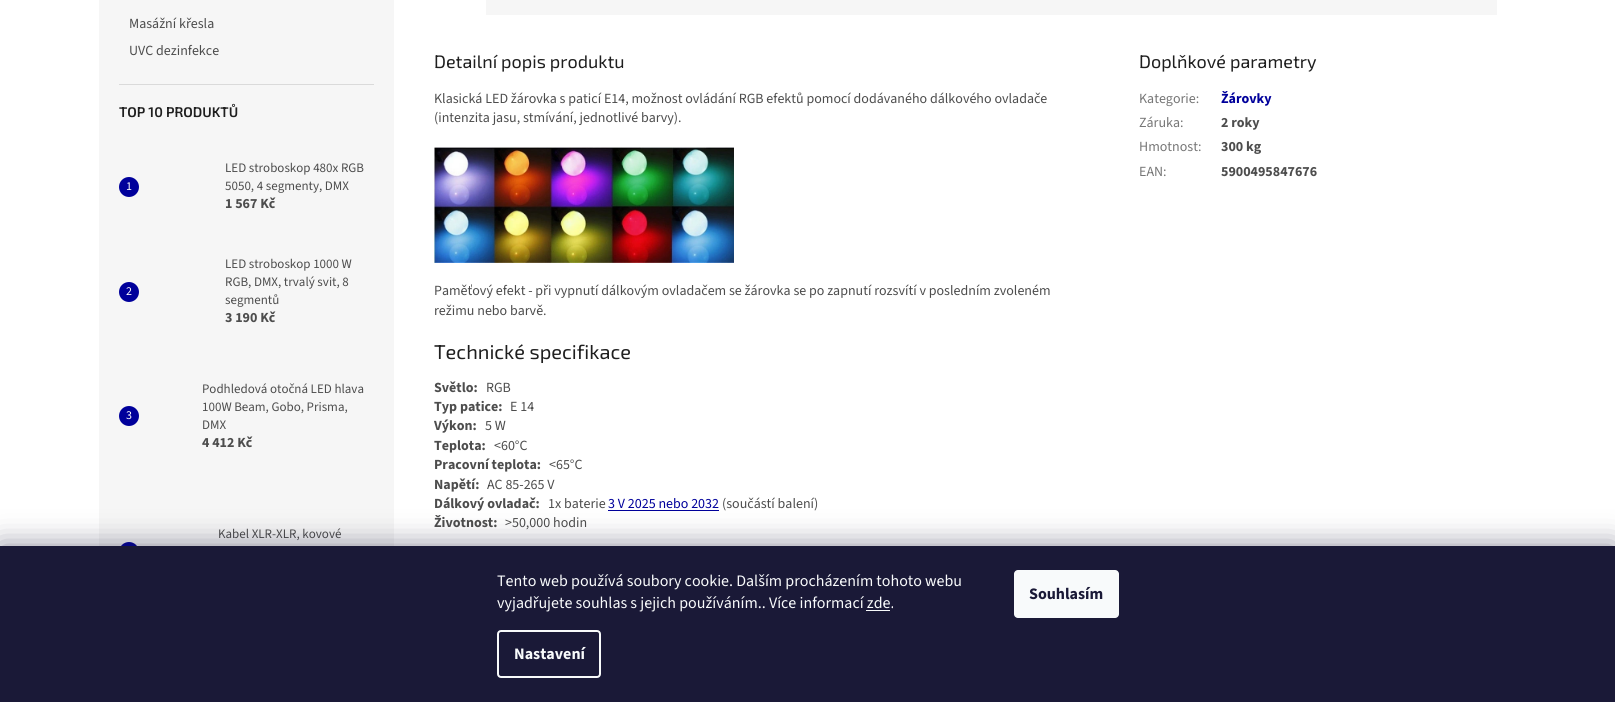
#include <cairo.h>
#include <math.h>
#include <stddef.h>

typedef struct { double x, y; const char *s; } line_t;

static void ink(cairo_t *ctx, unsigned color) {
    cairo_set_source_rgb(ctx, (color >> 16) / 255.0, (color >> 8 & 255) / 255.0, (color & 255) / 255.0);
}

static void round_path(cairo_t *ctx, double x, double y, double w, double h, double r) {
    cairo_new_sub_path(ctx);
    cairo_arc(ctx, x + w - r, y + h - r, r, 0, M_PI / 2);
    cairo_arc(ctx, x + r, y + h - r, r, M_PI / 2, M_PI);
    cairo_arc(ctx, x + r, y + r, r, M_PI, 1.5 * M_PI);
    cairo_arc(ctx, x + w - r, y + r, r, 1.5 * M_PI, 2 * M_PI);
    cairo_close_path(ctx);
}

static void blur_box(cairo_t *ctx, double x, double y, double w, double h, double r, double blur, double alpha) {
    cairo_push_group_with_content(ctx, CAIRO_CONTENT_ALPHA);
    cairo_set_operator(ctx, CAIRO_OPERATOR_SOURCE);
    for (int i = 15; i >= -15 && fmin(w, h) + blur * i / 3 > 0; i -= 2) {
        double e = blur * i / 6;
        cairo_set_source_rgba(ctx, 0, 0, 0, alpha * erfc((i - 1) / 8.5) / 2);
        round_path(ctx, x - e, y - e, w + 2 * e, h + 2 * e, fmax(0, fmin(r + e + blur * .6, fmin(w, h) / 2 + e)));
        cairo_fill(ctx);
    }
    cairo_pattern_t *soft = cairo_pop_group(ctx);
    cairo_mask(ctx, soft);
    cairo_pattern_destroy(soft);
}

static void paste(cairo_t *ctx, const char *path, double x, double y, double w, double h) {
    cairo_surface_t *image = cairo_image_surface_create_from_png(path);
    cairo_save(ctx);
    cairo_set_source_surface(ctx, image, x, y);
    cairo_rectangle(ctx, x, y, w, h);
    cairo_fill(ctx);
    cairo_restore(ctx);
    cairo_surface_destroy(image);
}

int main(void) {
    cairo_surface_t *surface = cairo_image_surface_create(CAIRO_FORMAT_RGB24, 1615, 702);
    cairo_t *ctx = cairo_create(surface);
    cairo_font_options_t *options = cairo_font_options_create();
    cairo_font_options_set_hint_metrics(options, CAIRO_HINT_METRICS_OFF);
    cairo_font_options_set_hint_style(options, CAIRO_HINT_STYLE_NONE);
    cairo_set_font_options(ctx, options);
    cairo_set_miter_limit(ctx, 4);
    ink(ctx, 0xFFFFFF);
    cairo_paint(ctx);
    ink(ctx, 0xF6F6F6);
    cairo_rectangle(ctx, 99, 0, 295, 546);
    cairo_fill(ctx);
    ink(ctx, 0xDADADA);
    cairo_rectangle(ctx, 119, 84, 255, 1);
    cairo_fill(ctx);
    cairo_select_font_face(ctx, "Source Sans 3", CAIRO_FONT_SLANT_NORMAL, CAIRO_FONT_WEIGHT_NORMAL);
    cairo_set_font_size(ctx, 14);
    ink(ctx, 0x4D4D4D);
    cairo_move_to(ctx, 129, 28);
    cairo_show_text(ctx, "Masážní křesla");
    cairo_move_to(ctx, 129, 55);
    cairo_show_text(ctx, "UVC dezinfekce");
    cairo_select_font_face(ctx, "Exo 2 SemiBold", CAIRO_FONT_SLANT_NORMAL, CAIRO_FONT_WEIGHT_NORMAL);
    ink(ctx, 0x1F1F1F);
    cairo_move_to(ctx, 119, 117);
    cairo_show_text(ctx, "TOP 10 PRODUKTŮ");
    ink(ctx, 0x00009B);
    cairo_new_path(ctx);
    cairo_arc(ctx, 129, 187, 10, 0, 2 * M_PI);
    cairo_fill(ctx);
    cairo_select_font_face(ctx, "Source Sans 3", CAIRO_FONT_SLANT_NORMAL, CAIRO_FONT_WEIGHT_NORMAL);
    cairo_set_font_size(ctx, 12);
    ink(ctx, 0xFFFFFF);
    cairo_move_to(ctx, 126, 190);
    cairo_show_text(ctx, "1");
    cairo_set_font_size(ctx, 13);
    ink(ctx, 0x4D4D4D);
    cairo_move_to(ctx, 225, 172);
    cairo_show_text(ctx, "LED stroboskop 480x RGB");
    cairo_move_to(ctx, 225, 190);
    cairo_show_text(ctx, "5050, 4 segmenty, DMX");
    cairo_select_font_face(ctx, "Source Sans 3", CAIRO_FONT_SLANT_NORMAL, CAIRO_FONT_WEIGHT_BOLD);
    cairo_set_font_size(ctx, 14);
    cairo_move_to(ctx, 225, 208);
    cairo_show_text(ctx, "1 567 Kč");
    ink(ctx, 0x00009B);
    cairo_new_path(ctx);
    cairo_arc(ctx, 129, 292, 10, 0, 2 * M_PI);
    cairo_fill(ctx);
    cairo_select_font_face(ctx, "Source Sans 3", CAIRO_FONT_SLANT_NORMAL, CAIRO_FONT_WEIGHT_NORMAL);
    cairo_set_font_size(ctx, 12);
    ink(ctx, 0xFFFFFF);
    cairo_move_to(ctx, 126, 295);
    cairo_show_text(ctx, "2");
    cairo_set_font_size(ctx, 13);
    ink(ctx, 0x4D4D4D);
    {
        static const line_t items[] = {
            {225, 268, "LED stroboskop 1000 W"},
            {225, 286, "RGB, DMX, trvalý svit, 8"},
            {225, 304, "segmentů"},
        };
        for (size_t i = 0; i < sizeof items / sizeof *items; i++) {
            cairo_move_to(ctx, items[i].x, items[i].y);
            cairo_show_text(ctx, items[i].s);
        }
    }
    cairo_select_font_face(ctx, "Source Sans 3", CAIRO_FONT_SLANT_NORMAL, CAIRO_FONT_WEIGHT_BOLD);
    cairo_set_font_size(ctx, 14);
    cairo_move_to(ctx, 225, 322);
    cairo_show_text(ctx, "3 190 Kč");
    ink(ctx, 0x00009B);
    cairo_new_path(ctx);
    cairo_arc(ctx, 129, 416, 10, 0, 2 * M_PI);
    cairo_fill(ctx);
    cairo_select_font_face(ctx, "Source Sans 3", CAIRO_FONT_SLANT_NORMAL, CAIRO_FONT_WEIGHT_NORMAL);
    cairo_set_font_size(ctx, 12);
    ink(ctx, 0xFFFFFF);
    cairo_move_to(ctx, 126, 419);
    cairo_show_text(ctx, "3");
    cairo_set_font_size(ctx, 13);
    ink(ctx, 0x4D4D4D);
    {
        static const line_t items[] = {
            {202, 393, "Podhledová otočná LED hlava"},
            {202, 411, "100W Beam, Gobo, Prisma,"},
            {202, 429, "DMX"},
        };
        for (size_t i = 0; i < sizeof items / sizeof *items; i++) {
            cairo_move_to(ctx, items[i].x, items[i].y);
            cairo_show_text(ctx, items[i].s);
        }
    }
    cairo_select_font_face(ctx, "Source Sans 3", CAIRO_FONT_SLANT_NORMAL, CAIRO_FONT_WEIGHT_BOLD);
    cairo_set_font_size(ctx, 14);
    cairo_move_to(ctx, 202, 447);
    cairo_show_text(ctx, "4 412 Kč");
    cairo_select_font_face(ctx, "Source Sans 3", CAIRO_FONT_SLANT_NORMAL, CAIRO_FONT_WEIGHT_NORMAL);
    cairo_set_font_size(ctx, 13);
    cairo_move_to(ctx, 218, 538);
    cairo_show_text(ctx, "Kabel XLR-XLR, kovové");
    ink(ctx, 0x00009B);
    cairo_new_path(ctx);
    cairo_arc(ctx, 129, 552, 10, 0, 2 * M_PI);
    cairo_fill(ctx);
    ink(ctx, 0xF6F6F6);
    cairo_rectangle(ctx, 486, 0, 1011, 15);
    cairo_fill(ctx);
    cairo_select_font_face(ctx, "Exo 2", CAIRO_FONT_SLANT_NORMAL, CAIRO_FONT_WEIGHT_NORMAL);
    cairo_set_font_size(ctx, 18);
    ink(ctx, 0x1F1F1F);
    cairo_move_to(ctx, 434, 68);
    cairo_show_text(ctx, "Detailní popis produktu");
    cairo_select_font_face(ctx, "Source Sans 3", CAIRO_FONT_SLANT_NORMAL, CAIRO_FONT_WEIGHT_NORMAL);
    cairo_set_font_size(ctx, 14);
    ink(ctx, 0x4D4D4D);
    cairo_move_to(ctx, 434, 103);
    cairo_show_text(ctx, "Klasická LED žárovka s paticí E14, možnost ovládání RGB efektů pomocí dodávaného dálkového ovladače");
    cairo_move_to(ctx, 434, 122);
    cairo_show_text(ctx, "(intenzita jasu, stmívání, jednotlivé barvy).");
    paste(ctx, "media/1.png", 434, 147, 300, 116);
    cairo_move_to(ctx, 434, 295);
    cairo_show_text(ctx, "Paměťový efekt - při vypnutí dálkovým ovladačem se žárovka se po zapnutí rozsvítí v posledním zvoleném");
    cairo_move_to(ctx, 434, 315);
    cairo_show_text(ctx, "režimu nebo barvě.");
    cairo_select_font_face(ctx, "Exo 2", CAIRO_FONT_SLANT_NORMAL, CAIRO_FONT_WEIGHT_NORMAL);
    cairo_set_font_size(ctx, 20);
    ink(ctx, 0x1F1F1F);
    cairo_move_to(ctx, 434, 359);
    cairo_show_text(ctx, "Technické specifikace");
    cairo_select_font_face(ctx, "Source Sans 3", CAIRO_FONT_SLANT_NORMAL, CAIRO_FONT_WEIGHT_BOLD);
    cairo_set_font_size(ctx, 14);
    ink(ctx, 0x4D4D4D);
    cairo_move_to(ctx, 434, 392);
    cairo_show_text(ctx, "Světlo:");
    cairo_select_font_face(ctx, "Source Sans 3", CAIRO_FONT_SLANT_NORMAL, CAIRO_FONT_WEIGHT_NORMAL);
    cairo_move_to(ctx, 486, 392);
    cairo_show_text(ctx, "RGB");
    cairo_select_font_face(ctx, "Source Sans 3", CAIRO_FONT_SLANT_NORMAL, CAIRO_FONT_WEIGHT_BOLD);
    cairo_move_to(ctx, 434, 411);
    cairo_show_text(ctx, "Typ patice:");
    cairo_select_font_face(ctx, "Source Sans 3", CAIRO_FONT_SLANT_NORMAL, CAIRO_FONT_WEIGHT_NORMAL);
    cairo_move_to(ctx, 510, 411);
    cairo_show_text(ctx, "E 14");
    cairo_select_font_face(ctx, "Source Sans 3", CAIRO_FONT_SLANT_NORMAL, CAIRO_FONT_WEIGHT_BOLD);
    cairo_move_to(ctx, 434, 430);
    cairo_show_text(ctx, "Výkon:");
    cairo_select_font_face(ctx, "Source Sans 3", CAIRO_FONT_SLANT_NORMAL, CAIRO_FONT_WEIGHT_NORMAL);
    cairo_move_to(ctx, 485, 430);
    cairo_show_text(ctx, "5 W");
    cairo_select_font_face(ctx, "Source Sans 3", CAIRO_FONT_SLANT_NORMAL, CAIRO_FONT_WEIGHT_BOLD);
    cairo_move_to(ctx, 434, 450);
    cairo_show_text(ctx, "Teplota:");
    cairo_select_font_face(ctx, "Source Sans 3", CAIRO_FONT_SLANT_NORMAL, CAIRO_FONT_WEIGHT_NORMAL);
    cairo_move_to(ctx, 494, 450);
    cairo_show_text(ctx, "<60°C");
    cairo_select_font_face(ctx, "Source Sans 3", CAIRO_FONT_SLANT_NORMAL, CAIRO_FONT_WEIGHT_BOLD);
    cairo_move_to(ctx, 434, 469);
    cairo_show_text(ctx, "Pracovní teplota:");
    cairo_select_font_face(ctx, "Source Sans 3", CAIRO_FONT_SLANT_NORMAL, CAIRO_FONT_WEIGHT_NORMAL);
    cairo_move_to(ctx, 549, 469);
    cairo_show_text(ctx, "<65°C");
    cairo_select_font_face(ctx, "Source Sans 3", CAIRO_FONT_SLANT_NORMAL, CAIRO_FONT_WEIGHT_BOLD);
    cairo_move_to(ctx, 434, 489);
    cairo_show_text(ctx, "Napětí:");
    cairo_select_font_face(ctx, "Source Sans 3", CAIRO_FONT_SLANT_NORMAL, CAIRO_FONT_WEIGHT_NORMAL);
    cairo_move_to(ctx, 487, 489);
    cairo_show_text(ctx, "AC 85-265 V");
    cairo_select_font_face(ctx, "Source Sans 3", CAIRO_FONT_SLANT_NORMAL, CAIRO_FONT_WEIGHT_BOLD);
    cairo_move_to(ctx, 434, 508);
    cairo_show_text(ctx, "Dálkový ovladač:");
    cairo_select_font_face(ctx, "Source Sans 3", CAIRO_FONT_SLANT_NORMAL, CAIRO_FONT_WEIGHT_NORMAL);
    cairo_move_to(ctx, 548, 508);
    cairo_show_text(ctx, "1x baterie");
    ink(ctx, 0x00009B);
    cairo_move_to(ctx, 608, 508);
    cairo_show_text(ctx, "3 V 2025 nebo 2032");
    cairo_rectangle(ctx, 608, 510, 111, 1);
    cairo_fill(ctx);
    ink(ctx, 0x4D4D4D);
    cairo_move_to(ctx, 722, 508);
    cairo_show_text(ctx, "(součástí balení)");
    cairo_select_font_face(ctx, "Source Sans 3", CAIRO_FONT_SLANT_NORMAL, CAIRO_FONT_WEIGHT_BOLD);
    cairo_move_to(ctx, 434, 527);
    cairo_show_text(ctx, "Životnost:");
    cairo_select_font_face(ctx, "Source Sans 3", CAIRO_FONT_SLANT_NORMAL, CAIRO_FONT_WEIGHT_NORMAL);
    cairo_move_to(ctx, 505, 527);
    cairo_show_text(ctx, ">50,000 hodin");
    cairo_select_font_face(ctx, "Exo 2", CAIRO_FONT_SLANT_NORMAL, CAIRO_FONT_WEIGHT_NORMAL);
    cairo_set_font_size(ctx, 18);
    ink(ctx, 0x1F1F1F);
    cairo_move_to(ctx, 1139, 68);
    cairo_show_text(ctx, "Doplňkové parametry");
    cairo_select_font_face(ctx, "Source Sans 3", CAIRO_FONT_SLANT_NORMAL, CAIRO_FONT_WEIGHT_NORMAL);
    cairo_set_font_size(ctx, 14);
    ink(ctx, 0x767676);
    cairo_move_to(ctx, 1139, 103);
    cairo_show_text(ctx, "Kategorie:");
    cairo_select_font_face(ctx, "Source Sans 3", CAIRO_FONT_SLANT_NORMAL, CAIRO_FONT_WEIGHT_BOLD);
    ink(ctx, 0x00009B);
    cairo_move_to(ctx, 1221, 103);
    cairo_show_text(ctx, "Žárovky");
    cairo_select_font_face(ctx, "Source Sans 3", CAIRO_FONT_SLANT_NORMAL, CAIRO_FONT_WEIGHT_NORMAL);
    ink(ctx, 0x767676);
    cairo_move_to(ctx, 1139, 127);
    cairo_show_text(ctx, "Záruka:");
    cairo_select_font_face(ctx, "Source Sans 3", CAIRO_FONT_SLANT_NORMAL, CAIRO_FONT_WEIGHT_BOLD);
    ink(ctx, 0x4D4D4D);
    cairo_move_to(ctx, 1221, 127);
    cairo_show_text(ctx, "2 roky");
    cairo_select_font_face(ctx, "Source Sans 3", CAIRO_FONT_SLANT_NORMAL, CAIRO_FONT_WEIGHT_NORMAL);
    ink(ctx, 0x767676);
    cairo_move_to(ctx, 1139, 151);
    cairo_show_text(ctx, "Hmotnost:");
    cairo_select_font_face(ctx, "Source Sans 3", CAIRO_FONT_SLANT_NORMAL, CAIRO_FONT_WEIGHT_BOLD);
    ink(ctx, 0x4D4D4D);
    cairo_move_to(ctx, 1221, 151);
    cairo_show_text(ctx, "300 kg");
    cairo_select_font_face(ctx, "Source Sans 3", CAIRO_FONT_SLANT_NORMAL, CAIRO_FONT_WEIGHT_NORMAL);
    ink(ctx, 0x767676);
    cairo_move_to(ctx, 1139, 176);
    cairo_show_text(ctx, "EAN:");
    cairo_select_font_face(ctx, "Source Sans 3", CAIRO_FONT_SLANT_NORMAL, CAIRO_FONT_WEIGHT_BOLD);
    ink(ctx, 0x4D4D4D);
    cairo_move_to(ctx, 1221, 176);
    cairo_show_text(ctx, "5900495847676");
    ink(ctx, 0x1B1939);
    blur_box(ctx, 0, 546, 1615, 156, 0, 15, 0.5);
    ink(ctx, 0x1A1937);
    cairo_rectangle(ctx, 0, 546, 1615, 156);
    cairo_fill(ctx);
    cairo_select_font_face(ctx, "Source Sans 3", CAIRO_FONT_SLANT_NORMAL, CAIRO_FONT_WEIGHT_NORMAL);
    cairo_set_font_size(ctx, 16);
    ink(ctx, 0xF8FAFB);
    cairo_move_to(ctx, 497, 586);
    cairo_show_text(ctx, "Tento web používá soubory cookie. Dalším procházením tohoto webu");
    cairo_move_to(ctx, 497, 608);
    cairo_show_text(ctx, "vyjadřujete souhlas s jejich používáním.. Více informací zde.");
    cairo_rectangle(ctx, 866, 610, 24, 1);
    cairo_fill(ctx);
    round_path(ctx, 498, 631, 102, 46, 3);
    cairo_stroke(ctx);
    cairo_select_font_face(ctx, "Source Sans 3", CAIRO_FONT_SLANT_NORMAL, CAIRO_FONT_WEIGHT_BOLD);
    cairo_move_to(ctx, 514, 659);
    cairo_show_text(ctx, "Nastavení");
    round_path(ctx, 1014, 570, 105, 48, 4);
    cairo_fill(ctx);
    ink(ctx, 0x1A1937);
    cairo_move_to(ctx, 1029, 599);
    cairo_show_text(ctx, "Souhlasím");
    cairo_surface_write_to_png(surface, "image.png");
    cairo_font_options_destroy(options);
    cairo_destroy(ctx);
    cairo_surface_destroy(surface);
    return 0;
}
